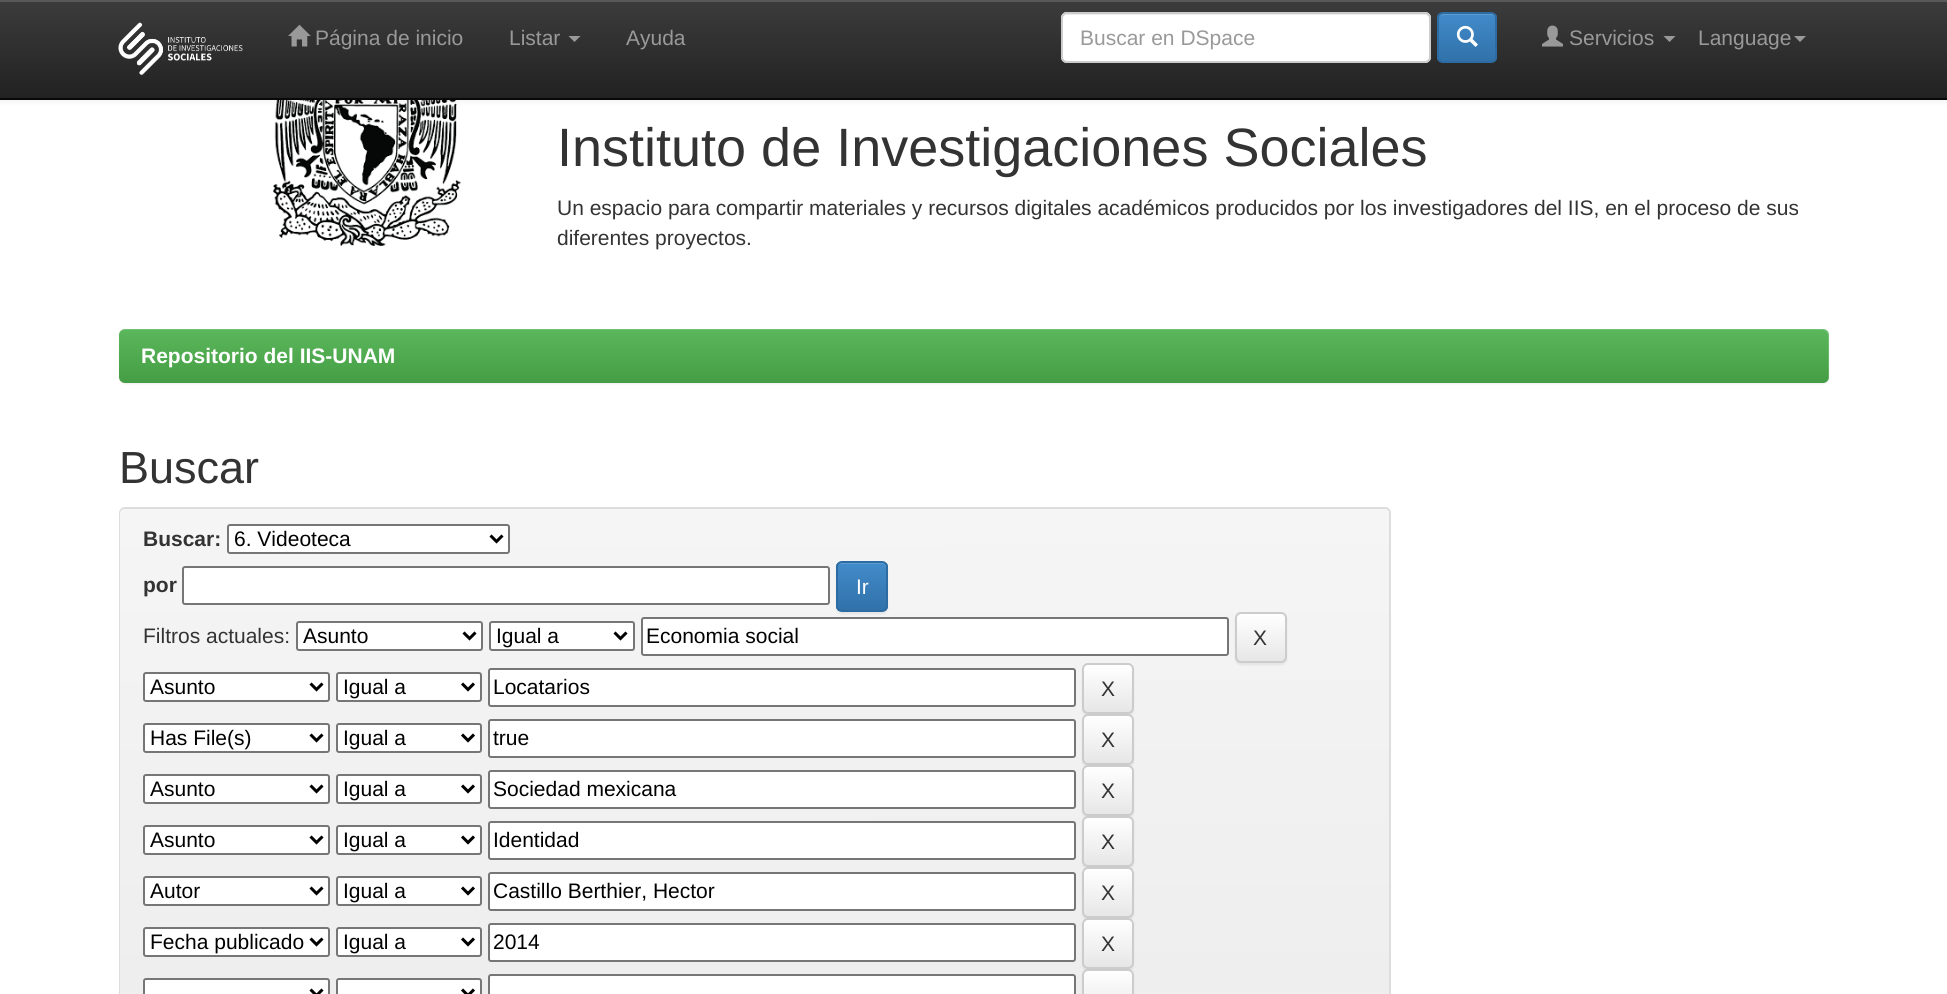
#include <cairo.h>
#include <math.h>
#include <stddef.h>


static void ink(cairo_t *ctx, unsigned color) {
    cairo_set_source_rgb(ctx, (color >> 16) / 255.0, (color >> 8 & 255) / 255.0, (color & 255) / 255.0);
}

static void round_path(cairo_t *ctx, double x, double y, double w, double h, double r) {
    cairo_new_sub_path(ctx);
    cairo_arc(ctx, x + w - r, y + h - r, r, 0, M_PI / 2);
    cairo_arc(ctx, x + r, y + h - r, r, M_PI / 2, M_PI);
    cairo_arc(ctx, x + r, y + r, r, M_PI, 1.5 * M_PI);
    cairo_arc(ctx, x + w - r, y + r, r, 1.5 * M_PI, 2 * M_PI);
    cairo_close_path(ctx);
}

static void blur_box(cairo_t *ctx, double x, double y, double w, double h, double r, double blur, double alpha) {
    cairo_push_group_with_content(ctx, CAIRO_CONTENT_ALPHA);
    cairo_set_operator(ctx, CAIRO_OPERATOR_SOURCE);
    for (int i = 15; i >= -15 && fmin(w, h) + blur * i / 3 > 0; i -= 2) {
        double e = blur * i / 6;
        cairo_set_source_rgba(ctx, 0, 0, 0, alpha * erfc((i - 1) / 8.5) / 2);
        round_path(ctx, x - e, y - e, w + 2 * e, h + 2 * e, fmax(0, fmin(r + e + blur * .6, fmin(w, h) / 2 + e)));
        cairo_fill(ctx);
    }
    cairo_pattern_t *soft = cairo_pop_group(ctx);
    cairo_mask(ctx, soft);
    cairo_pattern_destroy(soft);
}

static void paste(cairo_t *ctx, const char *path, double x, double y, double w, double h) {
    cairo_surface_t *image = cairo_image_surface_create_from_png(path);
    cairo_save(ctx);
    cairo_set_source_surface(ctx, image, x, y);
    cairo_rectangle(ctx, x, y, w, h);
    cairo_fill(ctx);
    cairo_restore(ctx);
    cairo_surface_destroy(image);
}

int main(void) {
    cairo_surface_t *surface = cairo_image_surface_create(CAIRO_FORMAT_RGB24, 1947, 994);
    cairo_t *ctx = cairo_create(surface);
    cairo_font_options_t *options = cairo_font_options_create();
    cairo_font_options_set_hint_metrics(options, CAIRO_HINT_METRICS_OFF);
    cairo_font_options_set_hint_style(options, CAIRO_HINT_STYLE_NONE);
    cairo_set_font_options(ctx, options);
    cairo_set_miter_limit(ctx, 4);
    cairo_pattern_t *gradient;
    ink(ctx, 0xFFFFFF);
    cairo_paint(ctx);
    paste(ctx, "media/5.png", 273, 100, 188, 146);
    ink(ctx, 0x000000);
    blur_box(ctx, 0, 2, 1947, 99, 0, 4, 0.07);
    gradient = cairo_pattern_create_linear(974, 0, 974, 98);
    cairo_pattern_add_color_stop_rgba(gradient, 0, 0.235, 0.235, 0.235, 1);
    cairo_pattern_add_color_stop_rgba(gradient, 1, 0.133, 0.133, 0.133, 1);
    cairo_set_source(ctx, gradient);
    cairo_pattern_destroy(gradient);
    cairo_rectangle(ctx, 0, 2, 1947, 96);
    cairo_fill(ctx);
    ink(ctx, 0x595959);
    cairo_rectangle(ctx, 0, 0, 1947, 2);
    cairo_fill(ctx);
    ink(ctx, 0x080808);
    cairo_rectangle(ctx, 0, 98, 1947, 2);
    cairo_fill(ctx);
    paste(ctx, "media/1.png", 118, 22, 125, 53);
    paste(ctx, "media/2.png", 288, 24, 23, 23);
    cairo_select_font_face(ctx, "Liberation Sans", CAIRO_FONT_SLANT_NORMAL, CAIRO_FONT_WEIGHT_NORMAL);
    cairo_set_font_size(ctx, 21);
    ink(ctx, 0x999999);
    cairo_move_to(ctx, 315, 45);
    cairo_show_text(ctx, "Página de inicio");
    cairo_move_to(ctx, 509, 45);
    cairo_show_text(ctx, "Listar");
    cairo_new_path(ctx);
    cairo_move_to(ctx, 568.5, 36);
    cairo_line_to(ctx, 580.5, 36);
    cairo_line_to(ctx, 574.5, 42);
    cairo_close_path(ctx);
    cairo_fill(ctx);
    cairo_move_to(ctx, 626, 45);
    cairo_show_text(ctx, "Ayuda");
    ink(ctx, 0xFFFFFF);
    round_path(ctx, 1061, 12, 370, 51, 6);
    cairo_fill(ctx);
    ink(ctx, 0xECECEC);
    cairo_new_path(ctx);
    cairo_move_to(ctx, 1066, 15);
    cairo_line_to(ctx, 1425, 15);
    cairo_curve_to(ctx, 1427, 15, 1430, 17, 1430, 20);
    cairo_line_to(ctx, 1430, 19);
    cairo_curve_to(ctx, 1430, 16, 1428, 14, 1425, 14);
    cairo_line_to(ctx, 1067, 14);
    cairo_curve_to(ctx, 1064, 14, 1062, 16, 1062, 19);
    cairo_line_to(ctx, 1062, 20);
    cairo_curve_to(ctx, 1062, 17, 1064, 15, 1066, 15);
    cairo_close_path(ctx);
    cairo_fill(ctx);
    round_path(ctx, 1062, 13, 368, 49, 5);
    ink(ctx, 0xCCCCCC);
    cairo_stroke(ctx);
    ink(ctx, 0x999999);
    cairo_move_to(ctx, 1080, 45);
    cairo_show_text(ctx, "Buscar en DSpace");
    cairo_save(ctx);
    round_path(ctx, 1437, 12, 60, 51, 6);
    cairo_clip(ctx);
    gradient = cairo_pattern_create_linear(1467, 13, 1467, 62);
    cairo_pattern_add_color_stop_rgba(gradient, 0, 0.259, 0.545, 0.792, 1);
    cairo_pattern_add_color_stop_rgba(gradient, 1, 0.188, 0.443, 0.663, 1);
    cairo_set_source(ctx, gradient);
    cairo_pattern_destroy(gradient);
    cairo_rectangle(ctx, 1437, 14, 60, 48);
    cairo_fill(ctx);
    cairo_restore(ctx);
    ink(ctx, 0x5D9CD1);
    cairo_new_path(ctx);
    cairo_move_to(ctx, 1443, 15);
    cairo_line_to(ctx, 1491, 15);
    cairo_curve_to(ctx, 1493, 15, 1496, 17, 1496, 20);
    cairo_line_to(ctx, 1496, 19);
    cairo_curve_to(ctx, 1496, 16, 1494, 14, 1491, 14);
    cairo_line_to(ctx, 1444, 14);
    cairo_curve_to(ctx, 1442, 14, 1441, 15, 1440, 16);
    cairo_close_path(ctx);
    cairo_fill(ctx);
    round_path(ctx, 1438, 13, 58, 49, 5);
    ink(ctx, 0x2D6CA2);
    cairo_stroke(ctx);
    paste(ctx, "media/3.png", 1456, 25, 22, 22);
    paste(ctx, "media/4.png", 1542, 25, 21, 22);
    ink(ctx, 0x999999);
    cairo_move_to(ctx, 1569, 45);
    cairo_show_text(ctx, "Servicios");
    cairo_new_path(ctx);
    cairo_move_to(ctx, 1663.5, 36);
    cairo_line_to(ctx, 1675.5, 36);
    cairo_line_to(ctx, 1669.5, 42);
    cairo_close_path(ctx);
    cairo_fill(ctx);
    cairo_move_to(ctx, 1698, 45);
    cairo_show_text(ctx, "Language");
    cairo_new_path(ctx);
    cairo_move_to(ctx, 1794, 36);
    cairo_line_to(ctx, 1806, 36);
    cairo_line_to(ctx, 1800, 42);
    cairo_close_path(ctx);
    cairo_fill(ctx);
    cairo_set_font_size(ctx, 54);
    ink(ctx, 0x333333);
    cairo_move_to(ctx, 557, 166);
    cairo_show_text(ctx, "Instituto de Investigaciones Sociales");
    cairo_set_font_size(ctx, 21);
    cairo_move_to(ctx, 557, 215);
    cairo_show_text(ctx, "Un espacio para compartir materiales y recursos digitales académicos producidos por los investigadores del IIS, en el proceso de sus");
    cairo_move_to(ctx, 557, 245);
    cairo_show_text(ctx, "diferentes proyectos.");
    ink(ctx, 0x000000);
    blur_box(ctx, 119, 330, 1710, 54, 6, 1, 0.07);
    gradient = cairo_pattern_create_linear(974, 328, 974, 383);
    cairo_pattern_add_color_stop_rgba(gradient, 0, 0.361, 0.722, 0.361, 1);
    cairo_pattern_add_color_stop_rgba(gradient, 1, 0.267, 0.616, 0.267, 1);
    cairo_set_source(ctx, gradient);
    cairo_pattern_destroy(gradient);
    round_path(ctx, 119, 329, 1710, 54, 6);
    cairo_fill(ctx);
    cairo_set_source_rgba(ctx, 1, 1, 1, 0.15);
    cairo_new_path(ctx);
    cairo_move_to(ctx, 124, 330);
    cairo_line_to(ctx, 1822, 330);
    cairo_curve_to(ctx, 1826, 330, 1828, 333, 1828, 336);
    cairo_line_to(ctx, 1828, 378);
    cairo_curve_to(ctx, 1828, 379, 1828, 380, 1827, 381);
    cairo_curve_to(ctx, 1828, 380, 1829, 379, 1829, 377);
    cairo_line_to(ctx, 1829, 335);
    cairo_curve_to(ctx, 1829, 332, 1826, 329, 1823, 329);
    cairo_line_to(ctx, 125, 329);
    cairo_curve_to(ctx, 123, 329, 121, 330, 120, 332);
    cairo_curve_to(ctx, 121, 331, 123, 330, 124, 330);
    cairo_close_path(ctx);
    cairo_fill(ctx);
    cairo_select_font_face(ctx, "Liberation Sans", CAIRO_FONT_SLANT_NORMAL, CAIRO_FONT_WEIGHT_BOLD);
    ink(ctx, 0xFFFFFF);
    cairo_move_to(ctx, 141, 363);
    cairo_show_text(ctx, "Repositorio del IIS-UNAM");
    cairo_select_font_face(ctx, "Liberation Sans", CAIRO_FONT_SLANT_NORMAL, CAIRO_FONT_WEIGHT_NORMAL);
    cairo_set_font_size(ctx, 45);
    ink(ctx, 0x333333);
    cairo_move_to(ctx, 119, 483);
    cairo_show_text(ctx, "Buscar");
    round_path(ctx, 120, 508, 1270, 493, 5);
    ink(ctx, 0xDDDDDD);
    cairo_stroke(ctx);
    gradient = cairo_pattern_create_linear(754, 508, 755, 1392);
    cairo_pattern_add_color_stop_rgba(gradient, 0, 0.961, 0.961, 0.961, 1);
    cairo_pattern_add_color_stop_rgba(gradient, 1, 0.91, 0.91, 0.91, 1);
    cairo_set_source(ctx, gradient);
    cairo_pattern_destroy(gradient);
    cairo_new_path(ctx);
    cairo_move_to(ctx, 125, 509);
    cairo_line_to(ctx, 1384, 509);
    cairo_curve_to(ctx, 1387, 509, 1389, 511, 1389, 514);
    cairo_line_to(ctx, 1389, 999);
    cairo_line_to(ctx, 120, 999);
    cairo_line_to(ctx, 120, 514);
    cairo_curve_to(ctx, 120, 511, 122, 509, 125, 509);
    cairo_close_path(ctx);
    cairo_fill(ctx);
    cairo_select_font_face(ctx, "Liberation Sans", CAIRO_FONT_SLANT_NORMAL, CAIRO_FONT_WEIGHT_BOLD);
    cairo_set_font_size(ctx, 21);
    ink(ctx, 0x333333);
    cairo_move_to(ctx, 143, 546);
    cairo_show_text(ctx, "Buscar:");
    ink(ctx, 0xFFFFFF);
    round_path(ctx, 228, 525, 281, 28, 2);
    cairo_fill_preserve(ctx);
    ink(ctx, 0x767676);
    cairo_stroke(ctx);
    cairo_new_path(ctx);
    cairo_move_to(ctx, 490.5, 535.5);
    cairo_line_to(ctx, 496.5, 541.5);
    cairo_line_to(ctx, 502.5, 535.5);
    ink(ctx, 0x000000);
    cairo_set_line_width(ctx, 3);
    cairo_stroke(ctx);
    cairo_select_font_face(ctx, "Liberation Sans", CAIRO_FONT_SLANT_NORMAL, CAIRO_FONT_WEIGHT_NORMAL);
    cairo_move_to(ctx, 234, 546);
    cairo_show_text(ctx, "6. Videoteca");
    cairo_select_font_face(ctx, "Liberation Sans", CAIRO_FONT_SLANT_NORMAL, CAIRO_FONT_WEIGHT_BOLD);
    ink(ctx, 0x333333);
    cairo_move_to(ctx, 143, 592);
    cairo_show_text(ctx, "por");
    ink(ctx, 0xFFFFFF);
    round_path(ctx, 183, 567, 646, 37, 2);
    cairo_fill_preserve(ctx);
    ink(ctx, 0x767676);
    cairo_set_line_width(ctx, 2);
    cairo_stroke(ctx);
    ink(ctx, 0xFFFFFF);
    round_path(ctx, 642, 618, 586, 37, 2);
    cairo_fill_preserve(ctx);
    ink(ctx, 0x767676);
    cairo_stroke(ctx);
    ink(ctx, 0x000000);
    blur_box(ctx, 836, 563, 52, 51, 6, 1, 0.07);
    cairo_save(ctx);
    round_path(ctx, 836, 561, 52, 51, 6);
    cairo_clip(ctx);
    gradient = cairo_pattern_create_linear(862, 563, 862, 611);
    cairo_pattern_add_color_stop_rgba(gradient, 0, 0.259, 0.545, 0.792, 1);
    cairo_pattern_add_color_stop_rgba(gradient, 1, 0.188, 0.443, 0.663, 1);
    cairo_set_source(ctx, gradient);
    cairo_pattern_destroy(gradient);
    cairo_rectangle(ctx, 836, 563, 52, 48);
    cairo_fill(ctx);
    cairo_restore(ctx);
    cairo_set_source_rgba(ctx, 1, 1, 1, 0.15);
    cairo_new_path(ctx);
    cairo_move_to(ctx, 842, 564);
    cairo_line_to(ctx, 883, 564);
    cairo_curve_to(ctx, 887, 565, 886, 572, 886, 575);
    cairo_line_to(ctx, 886, 609);
    cairo_curve_to(ctx, 887, 608, 887, 607, 887, 606);
    cairo_line_to(ctx, 887, 568);
    cairo_curve_to(ctx, 887, 565, 885, 563, 882, 563);
    cairo_line_to(ctx, 842, 563);
    cairo_curve_to(ctx, 839, 563, 837, 565, 837, 568);
    cairo_curve_to(ctx, 837, 566, 839, 564, 842, 564);
    cairo_close_path(ctx);
    cairo_fill(ctx);
    round_path(ctx, 837, 562, 50, 49, 5);
    ink(ctx, 0x2D6CA2);
    cairo_stroke(ctx);
    cairo_select_font_face(ctx, "Liberation Sans", CAIRO_FONT_SLANT_NORMAL, CAIRO_FONT_WEIGHT_NORMAL);
    ink(ctx, 0xFFFFFF);
    cairo_move_to(ctx, 856, 594);
    cairo_show_text(ctx, "Ir");
    ink(ctx, 0x333333);
    cairo_move_to(ctx, 143, 643);
    cairo_show_text(ctx, "Filtros actuales:");
    ink(ctx, 0xFFFFFF);
    round_path(ctx, 297, 622, 185, 28, 2);
    cairo_fill_preserve(ctx);
    ink(ctx, 0x767676);
    cairo_stroke(ctx);
    cairo_new_path(ctx);
    cairo_move_to(ctx, 463.5, 632.5);
    cairo_line_to(ctx, 469.5, 638.5);
    cairo_line_to(ctx, 475.5, 632.5);
    ink(ctx, 0x000000);
    cairo_set_line_width(ctx, 3);
    cairo_stroke(ctx);
    cairo_move_to(ctx, 303, 643);
    cairo_show_text(ctx, "Asunto");
    ink(ctx, 0xFFFFFF);
    round_path(ctx, 490, 622, 144, 28, 2);
    cairo_fill_preserve(ctx);
    ink(ctx, 0x767676);
    cairo_set_line_width(ctx, 2);
    cairo_stroke(ctx);
    cairo_new_path(ctx);
    cairo_move_to(ctx, 614.5, 632.5);
    cairo_line_to(ctx, 620.5, 638.5);
    cairo_line_to(ctx, 626.5, 632.5);
    ink(ctx, 0x000000);
    cairo_set_line_width(ctx, 3);
    cairo_stroke(ctx);
    cairo_move_to(ctx, 496, 643);
    cairo_show_text(ctx, "Igual a");
    cairo_move_to(ctx, 646, 643);
    cairo_show_text(ctx, "Economia social");
    ink(ctx, 0x000000);
    blur_box(ctx, 1235, 614, 52, 51, 6, 1, 0.07);
    cairo_save(ctx);
    round_path(ctx, 1235, 612, 52, 51, 6);
    cairo_clip(ctx);
    gradient = cairo_pattern_create_linear(1261, 614, 1261, 662);
    cairo_pattern_add_color_stop_rgba(gradient, 0, 1, 1, 1, 1);
    cairo_pattern_add_color_stop_rgba(gradient, 1, 0.902, 0.902, 0.902, 1);
    cairo_set_source(ctx, gradient);
    cairo_pattern_destroy(gradient);
    cairo_rectangle(ctx, 1235, 614, 52, 48);
    cairo_fill(ctx);
    cairo_restore(ctx);
    round_path(ctx, 1236, 613, 50, 49, 5);
    ink(ctx, 0xCCCCCC);
    cairo_set_line_width(ctx, 2);
    cairo_stroke(ctx);
    ink(ctx, 0x333333);
    cairo_move_to(ctx, 1253, 645);
    cairo_show_text(ctx, "X");
    ink(ctx, 0xFFFFFF);
    round_path(ctx, 144, 673, 185, 28, 2);
    cairo_fill_preserve(ctx);
    ink(ctx, 0x767676);
    cairo_stroke(ctx);
    cairo_new_path(ctx);
    cairo_move_to(ctx, 310.5, 683.5);
    cairo_line_to(ctx, 316.5, 689.5);
    cairo_line_to(ctx, 322.5, 683.5);
    ink(ctx, 0x000000);
    cairo_set_line_width(ctx, 3);
    cairo_stroke(ctx);
    cairo_move_to(ctx, 150, 694);
    cairo_show_text(ctx, "Asunto");
    ink(ctx, 0xFFFFFF);
    round_path(ctx, 337, 673, 144, 28, 2);
    cairo_fill_preserve(ctx);
    ink(ctx, 0x767676);
    cairo_set_line_width(ctx, 2);
    cairo_stroke(ctx);
    cairo_new_path(ctx);
    cairo_move_to(ctx, 462, 683.5);
    cairo_line_to(ctx, 468, 689.5);
    cairo_line_to(ctx, 474, 683.5);
    ink(ctx, 0x000000);
    cairo_set_line_width(ctx, 3);
    cairo_stroke(ctx);
    cairo_move_to(ctx, 343, 694);
    cairo_show_text(ctx, "Igual a");
    ink(ctx, 0xFFFFFF);
    round_path(ctx, 489, 669, 586, 37, 2);
    cairo_fill_preserve(ctx);
    ink(ctx, 0x767676);
    cairo_set_line_width(ctx, 2);
    cairo_stroke(ctx);
    ink(ctx, 0x000000);
    cairo_move_to(ctx, 493, 694);
    cairo_show_text(ctx, "Locatarios");
    ink(ctx, 0x000000);
    blur_box(ctx, 1082, 665, 52, 51, 6, 1, 0.07);
    cairo_save(ctx);
    round_path(ctx, 1082, 663, 52, 51, 6);
    cairo_clip(ctx);
    gradient = cairo_pattern_create_linear(1108, 665, 1108, 713);
    cairo_pattern_add_color_stop_rgba(gradient, 0, 1, 1, 1, 1);
    cairo_pattern_add_color_stop_rgba(gradient, 1, 0.902, 0.902, 0.902, 1);
    cairo_set_source(ctx, gradient);
    cairo_pattern_destroy(gradient);
    cairo_rectangle(ctx, 1082, 665, 52, 48);
    cairo_fill(ctx);
    cairo_restore(ctx);
    cairo_set_source_rgba(ctx, 1, 1, 1, 0.15);
    cairo_new_path(ctx);
    cairo_move_to(ctx, 1088, 666);
    cairo_line_to(ctx, 1129, 666);
    cairo_curve_to(ctx, 1133, 667, 1132, 674, 1132, 677);
    cairo_line_to(ctx, 1132, 711);
    cairo_curve_to(ctx, 1133, 710, 1133, 709, 1133, 708);
    cairo_line_to(ctx, 1133, 670);
    cairo_curve_to(ctx, 1133, 667, 1131, 665, 1128, 665);
    cairo_line_to(ctx, 1088, 665);
    cairo_curve_to(ctx, 1085, 665, 1083, 667, 1083, 670);
    cairo_curve_to(ctx, 1083, 668, 1085, 666, 1088, 666);
    cairo_close_path(ctx);
    cairo_fill(ctx);
    round_path(ctx, 1083, 664, 50, 49, 5);
    ink(ctx, 0xCCCCCC);
    cairo_stroke(ctx);
    ink(ctx, 0x333333);
    cairo_move_to(ctx, 1101, 696);
    cairo_show_text(ctx, "X");
    ink(ctx, 0xFFFFFF);
    round_path(ctx, 144, 724, 185, 28, 2);
    cairo_fill_preserve(ctx);
    ink(ctx, 0x767676);
    cairo_stroke(ctx);
    cairo_new_path(ctx);
    cairo_move_to(ctx, 310.5, 734.5);
    cairo_line_to(ctx, 316.5, 740.5);
    cairo_line_to(ctx, 322.5, 734.5);
    ink(ctx, 0x000000);
    cairo_set_line_width(ctx, 3);
    cairo_stroke(ctx);
    cairo_move_to(ctx, 150, 745);
    cairo_show_text(ctx, "Has File(s)");
    ink(ctx, 0xFFFFFF);
    round_path(ctx, 337, 724, 144, 28, 2);
    cairo_fill_preserve(ctx);
    ink(ctx, 0x767676);
    cairo_set_line_width(ctx, 2);
    cairo_stroke(ctx);
    cairo_new_path(ctx);
    cairo_move_to(ctx, 462, 734.5);
    cairo_line_to(ctx, 468, 740.5);
    cairo_line_to(ctx, 474, 734.5);
    ink(ctx, 0x000000);
    cairo_set_line_width(ctx, 3);
    cairo_stroke(ctx);
    cairo_move_to(ctx, 343, 745);
    cairo_show_text(ctx, "Igual a");
    ink(ctx, 0xFFFFFF);
    round_path(ctx, 489, 720, 586, 37, 2);
    cairo_fill_preserve(ctx);
    ink(ctx, 0x767676);
    cairo_set_line_width(ctx, 2);
    cairo_stroke(ctx);
    ink(ctx, 0x000000);
    cairo_move_to(ctx, 493, 745);
    cairo_show_text(ctx, "true");
    ink(ctx, 0x000000);
    blur_box(ctx, 1082, 716, 52, 51, 6, 1, 0.07);
    cairo_save(ctx);
    round_path(ctx, 1082, 714, 52, 51, 6);
    cairo_clip(ctx);
    gradient = cairo_pattern_create_linear(1108, 716, 1108, 764);
    cairo_pattern_add_color_stop_rgba(gradient, 0, 1, 1, 1, 1);
    cairo_pattern_add_color_stop_rgba(gradient, 1, 0.902, 0.902, 0.902, 1);
    cairo_set_source(ctx, gradient);
    cairo_pattern_destroy(gradient);
    cairo_rectangle(ctx, 1082, 716, 52, 48);
    cairo_fill(ctx);
    cairo_restore(ctx);
    cairo_set_source_rgba(ctx, 1, 1, 1, 0.15);
    cairo_new_path(ctx);
    cairo_move_to(ctx, 1088, 717);
    cairo_line_to(ctx, 1128, 717);
    cairo_curve_to(ctx, 1130, 717, 1132, 719, 1132, 722);
    cairo_line_to(ctx, 1132, 760);
    cairo_line_to(ctx, 1131, 763);
    cairo_curve_to(ctx, 1132, 762, 1133, 760, 1133, 759);
    cairo_line_to(ctx, 1133, 721);
    cairo_curve_to(ctx, 1133, 718, 1131, 716, 1128, 716);
    cairo_line_to(ctx, 1088, 716);
    cairo_curve_to(ctx, 1085, 716, 1083, 718, 1083, 721);
    cairo_line_to(ctx, 1083, 722);
    cairo_curve_to(ctx, 1083, 719, 1085, 717, 1088, 717);
    cairo_close_path(ctx);
    cairo_fill(ctx);
    round_path(ctx, 1083, 715, 50, 49, 5);
    ink(ctx, 0xCCCCCC);
    cairo_stroke(ctx);
    ink(ctx, 0x333333);
    cairo_move_to(ctx, 1101, 747);
    cairo_show_text(ctx, "X");
    ink(ctx, 0xFFFFFF);
    round_path(ctx, 144, 775, 185, 28, 2);
    cairo_fill_preserve(ctx);
    ink(ctx, 0x767676);
    cairo_stroke(ctx);
    cairo_new_path(ctx);
    cairo_move_to(ctx, 310.5, 785.5);
    cairo_line_to(ctx, 316.5, 791.5);
    cairo_line_to(ctx, 322.5, 785.5);
    ink(ctx, 0x000000);
    cairo_set_line_width(ctx, 3);
    cairo_stroke(ctx);
    cairo_move_to(ctx, 150, 796);
    cairo_show_text(ctx, "Asunto");
    ink(ctx, 0xFFFFFF);
    round_path(ctx, 337, 775, 144, 28, 2);
    cairo_fill_preserve(ctx);
    ink(ctx, 0x767676);
    cairo_set_line_width(ctx, 2);
    cairo_stroke(ctx);
    cairo_new_path(ctx);
    cairo_move_to(ctx, 462, 785.5);
    cairo_line_to(ctx, 468, 791.5);
    cairo_line_to(ctx, 474, 785.5);
    ink(ctx, 0x000000);
    cairo_set_line_width(ctx, 3);
    cairo_stroke(ctx);
    cairo_move_to(ctx, 343, 796);
    cairo_show_text(ctx, "Igual a");
    ink(ctx, 0xFFFFFF);
    round_path(ctx, 489, 771, 586, 37, 2);
    cairo_fill_preserve(ctx);
    ink(ctx, 0x767676);
    cairo_set_line_width(ctx, 2);
    cairo_stroke(ctx);
    ink(ctx, 0x000000);
    cairo_move_to(ctx, 493, 796);
    cairo_show_text(ctx, "Sociedad mexicana");
    ink(ctx, 0x000000);
    blur_box(ctx, 1082, 767, 52, 51, 6, 1, 0.07);
    cairo_save(ctx);
    round_path(ctx, 1082, 765, 52, 51, 6);
    cairo_clip(ctx);
    gradient = cairo_pattern_create_linear(1108, 767, 1108, 815);
    cairo_pattern_add_color_stop_rgba(gradient, 0, 1, 1, 1, 1);
    cairo_pattern_add_color_stop_rgba(gradient, 1, 0.902, 0.902, 0.902, 1);
    cairo_set_source(ctx, gradient);
    cairo_pattern_destroy(gradient);
    cairo_rectangle(ctx, 1082, 767, 52, 48);
    cairo_fill(ctx);
    cairo_restore(ctx);
    cairo_set_source_rgba(ctx, 1, 1, 1, 0.15);
    cairo_new_path(ctx);
    cairo_move_to(ctx, 1088, 768);
    cairo_line_to(ctx, 1129, 768);
    cairo_curve_to(ctx, 1133, 769, 1132, 776, 1132, 779);
    cairo_line_to(ctx, 1132, 813);
    cairo_curve_to(ctx, 1133, 812, 1133, 811, 1133, 810);
    cairo_line_to(ctx, 1133, 772);
    cairo_curve_to(ctx, 1133, 769, 1131, 767, 1128, 767);
    cairo_line_to(ctx, 1088, 767);
    cairo_curve_to(ctx, 1085, 767, 1083, 769, 1083, 772);
    cairo_curve_to(ctx, 1083, 770, 1085, 768, 1088, 768);
    cairo_close_path(ctx);
    cairo_fill(ctx);
    round_path(ctx, 1083, 766, 50, 49, 5);
    ink(ctx, 0xCCCCCC);
    cairo_stroke(ctx);
    ink(ctx, 0x333333);
    cairo_move_to(ctx, 1101, 798);
    cairo_show_text(ctx, "X");
    ink(ctx, 0xFFFFFF);
    round_path(ctx, 144, 826, 185, 28, 2);
    cairo_fill_preserve(ctx);
    ink(ctx, 0x767676);
    cairo_stroke(ctx);
    cairo_new_path(ctx);
    cairo_move_to(ctx, 310.5, 836.5);
    cairo_line_to(ctx, 316.5, 842.5);
    cairo_line_to(ctx, 322.5, 836.5);
    ink(ctx, 0x000000);
    cairo_set_line_width(ctx, 3);
    cairo_stroke(ctx);
    cairo_move_to(ctx, 150, 847);
    cairo_show_text(ctx, "Asunto");
    ink(ctx, 0xFFFFFF);
    round_path(ctx, 337, 826, 144, 28, 2);
    cairo_fill_preserve(ctx);
    ink(ctx, 0x767676);
    cairo_set_line_width(ctx, 2);
    cairo_stroke(ctx);
    cairo_new_path(ctx);
    cairo_move_to(ctx, 462, 836.5);
    cairo_line_to(ctx, 468, 842.5);
    cairo_line_to(ctx, 474, 836.5);
    ink(ctx, 0x000000);
    cairo_set_line_width(ctx, 3);
    cairo_stroke(ctx);
    cairo_move_to(ctx, 343, 847);
    cairo_show_text(ctx, "Igual a");
    ink(ctx, 0xFFFFFF);
    round_path(ctx, 489, 822, 586, 37, 2);
    cairo_fill_preserve(ctx);
    ink(ctx, 0x767676);
    cairo_set_line_width(ctx, 2);
    cairo_stroke(ctx);
    ink(ctx, 0x000000);
    cairo_move_to(ctx, 493, 847);
    cairo_show_text(ctx, "Identidad");
    ink(ctx, 0x000000);
    blur_box(ctx, 1082, 818, 52, 51, 6, 1, 0.07);
    cairo_save(ctx);
    round_path(ctx, 1082, 816, 52, 51, 6);
    cairo_clip(ctx);
    gradient = cairo_pattern_create_linear(1108, 818, 1108, 866);
    cairo_pattern_add_color_stop_rgba(gradient, 0, 1, 1, 1, 1);
    cairo_pattern_add_color_stop_rgba(gradient, 1, 0.902, 0.902, 0.902, 1);
    cairo_set_source(ctx, gradient);
    cairo_pattern_destroy(gradient);
    cairo_rectangle(ctx, 1082, 818, 52, 48);
    cairo_fill(ctx);
    cairo_restore(ctx);
    cairo_set_source_rgba(ctx, 1, 1, 1, 0.15);
    cairo_new_path(ctx);
    cairo_move_to(ctx, 1088, 819);
    cairo_line_to(ctx, 1128, 819);
    cairo_curve_to(ctx, 1130, 819, 1132, 821, 1132, 824);
    cairo_line_to(ctx, 1132, 862);
    cairo_line_to(ctx, 1131, 865);
    cairo_curve_to(ctx, 1132, 864, 1133, 862, 1133, 861);
    cairo_line_to(ctx, 1133, 823);
    cairo_curve_to(ctx, 1133, 820, 1131, 818, 1128, 818);
    cairo_line_to(ctx, 1088, 818);
    cairo_curve_to(ctx, 1085, 818, 1083, 820, 1083, 823);
    cairo_line_to(ctx, 1083, 824);
    cairo_curve_to(ctx, 1083, 821, 1085, 819, 1088, 819);
    cairo_close_path(ctx);
    cairo_fill(ctx);
    round_path(ctx, 1083, 817, 50, 49, 5);
    ink(ctx, 0xCCCCCC);
    cairo_stroke(ctx);
    ink(ctx, 0x333333);
    cairo_move_to(ctx, 1101, 849);
    cairo_show_text(ctx, "X");
    ink(ctx, 0xFFFFFF);
    round_path(ctx, 144, 877, 185, 28, 2);
    cairo_fill_preserve(ctx);
    ink(ctx, 0x767676);
    cairo_stroke(ctx);
    cairo_new_path(ctx);
    cairo_move_to(ctx, 310.5, 887.5);
    cairo_line_to(ctx, 316.5, 893.5);
    cairo_line_to(ctx, 322.5, 887.5);
    ink(ctx, 0x000000);
    cairo_set_line_width(ctx, 3);
    cairo_stroke(ctx);
    cairo_move_to(ctx, 150, 898);
    cairo_show_text(ctx, "Autor");
    ink(ctx, 0xFFFFFF);
    round_path(ctx, 337, 877, 144, 28, 2);
    cairo_fill_preserve(ctx);
    ink(ctx, 0x767676);
    cairo_set_line_width(ctx, 2);
    cairo_stroke(ctx);
    cairo_new_path(ctx);
    cairo_move_to(ctx, 462, 887.5);
    cairo_line_to(ctx, 468, 893.5);
    cairo_line_to(ctx, 474, 887.5);
    ink(ctx, 0x000000);
    cairo_set_line_width(ctx, 3);
    cairo_stroke(ctx);
    cairo_move_to(ctx, 343, 898);
    cairo_show_text(ctx, "Igual a");
    ink(ctx, 0xFFFFFF);
    round_path(ctx, 489, 873, 586, 37, 2);
    cairo_fill_preserve(ctx);
    ink(ctx, 0x767676);
    cairo_set_line_width(ctx, 2);
    cairo_stroke(ctx);
    ink(ctx, 0x000000);
    cairo_move_to(ctx, 493, 898);
    cairo_show_text(ctx, "Castillo Berthier, Hector");
    ink(ctx, 0x000000);
    blur_box(ctx, 1082, 869, 52, 51, 6, 1, 0.07);
    cairo_save(ctx);
    round_path(ctx, 1082, 867, 52, 51, 6);
    cairo_clip(ctx);
    gradient = cairo_pattern_create_linear(1108, 869, 1108, 917);
    cairo_pattern_add_color_stop_rgba(gradient, 0, 1, 1, 1, 1);
    cairo_pattern_add_color_stop_rgba(gradient, 1, 0.902, 0.902, 0.902, 1);
    cairo_set_source(ctx, gradient);
    cairo_pattern_destroy(gradient);
    cairo_rectangle(ctx, 1082, 869, 52, 48);
    cairo_fill(ctx);
    cairo_restore(ctx);
    cairo_set_source_rgba(ctx, 1, 1, 1, 0.15);
    cairo_new_path(ctx);
    cairo_move_to(ctx, 1088, 870);
    cairo_line_to(ctx, 1129, 870);
    cairo_curve_to(ctx, 1133, 871, 1132, 878, 1132, 881);
    cairo_line_to(ctx, 1132, 915);
    cairo_curve_to(ctx, 1133, 914, 1133, 913, 1133, 912);
    cairo_line_to(ctx, 1133, 874);
    cairo_curve_to(ctx, 1133, 871, 1131, 869, 1128, 869);
    cairo_line_to(ctx, 1088, 869);
    cairo_curve_to(ctx, 1085, 869, 1083, 871, 1083, 874);
    cairo_curve_to(ctx, 1083, 872, 1085, 870, 1088, 870);
    cairo_close_path(ctx);
    cairo_fill(ctx);
    round_path(ctx, 1083, 868, 50, 49, 5);
    ink(ctx, 0xCCCCCC);
    cairo_stroke(ctx);
    ink(ctx, 0x333333);
    cairo_move_to(ctx, 1101, 900);
    cairo_show_text(ctx, "X");
    ink(ctx, 0xFFFFFF);
    round_path(ctx, 144, 928, 185, 28, 2);
    cairo_fill_preserve(ctx);
    ink(ctx, 0x767676);
    cairo_stroke(ctx);
    cairo_new_path(ctx);
    cairo_move_to(ctx, 310.5, 938.5);
    cairo_line_to(ctx, 316.5, 944.5);
    cairo_line_to(ctx, 322.5, 938.5);
    ink(ctx, 0x000000);
    cairo_set_line_width(ctx, 3);
    cairo_stroke(ctx);
    cairo_move_to(ctx, 150, 949);
    cairo_show_text(ctx, "Fecha publicado");
    ink(ctx, 0xFFFFFF);
    round_path(ctx, 337, 928, 144, 28, 2);
    cairo_fill_preserve(ctx);
    ink(ctx, 0x767676);
    cairo_set_line_width(ctx, 2);
    cairo_stroke(ctx);
    cairo_new_path(ctx);
    cairo_move_to(ctx, 462, 938.5);
    cairo_line_to(ctx, 468, 944.5);
    cairo_line_to(ctx, 474, 938.5);
    ink(ctx, 0x000000);
    cairo_set_line_width(ctx, 3);
    cairo_stroke(ctx);
    cairo_move_to(ctx, 343, 949);
    cairo_show_text(ctx, "Igual a");
    ink(ctx, 0xFFFFFF);
    round_path(ctx, 489, 924, 586, 37, 2);
    cairo_fill_preserve(ctx);
    ink(ctx, 0x767676);
    cairo_set_line_width(ctx, 2);
    cairo_stroke(ctx);
    ink(ctx, 0x000000);
    cairo_move_to(ctx, 493, 949);
    cairo_show_text(ctx, "2014");
    ink(ctx, 0x000000);
    blur_box(ctx, 1082, 920, 52, 51, 6, 1, 0.07);
    cairo_save(ctx);
    round_path(ctx, 1082, 918, 52, 51, 6);
    cairo_clip(ctx);
    gradient = cairo_pattern_create_linear(1108, 920, 1108, 968);
    cairo_pattern_add_color_stop_rgba(gradient, 0, 1, 1, 1, 1);
    cairo_pattern_add_color_stop_rgba(gradient, 1, 0.902, 0.902, 0.902, 1);
    cairo_set_source(ctx, gradient);
    cairo_pattern_destroy(gradient);
    cairo_rectangle(ctx, 1082, 920, 52, 48);
    cairo_fill(ctx);
    cairo_restore(ctx);
    cairo_set_source_rgba(ctx, 1, 1, 1, 0.15);
    cairo_new_path(ctx);
    cairo_move_to(ctx, 1088, 921);
    cairo_line_to(ctx, 1128, 921);
    cairo_curve_to(ctx, 1130, 921, 1132, 923, 1132, 926);
    cairo_line_to(ctx, 1132, 964);
    cairo_line_to(ctx, 1131, 967);
    cairo_curve_to(ctx, 1132, 966, 1133, 964, 1133, 963);
    cairo_line_to(ctx, 1133, 925);
    cairo_curve_to(ctx, 1133, 922, 1131, 920, 1128, 920);
    cairo_line_to(ctx, 1088, 920);
    cairo_curve_to(ctx, 1085, 920, 1083, 922, 1083, 925);
    cairo_line_to(ctx, 1083, 926);
    cairo_curve_to(ctx, 1083, 923, 1085, 921, 1088, 921);
    cairo_close_path(ctx);
    cairo_fill(ctx);
    round_path(ctx, 1083, 919, 50, 49, 5);
    ink(ctx, 0xCCCCCC);
    cairo_stroke(ctx);
    ink(ctx, 0x333333);
    cairo_move_to(ctx, 1101, 951);
    cairo_show_text(ctx, "X");
    ink(ctx, 0xFFFFFF);
    round_path(ctx, 144, 979, 185, 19, 2);
    cairo_fill_preserve(ctx);
    ink(ctx, 0x767676);
    cairo_stroke(ctx);
    cairo_new_path(ctx);
    cairo_move_to(ctx, 310.5, 989.5);
    cairo_line_to(ctx, 316.5, 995.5);
    cairo_line_to(ctx, 322.5, 989.5);
    ink(ctx, 0x000000);
    cairo_set_line_width(ctx, 3);
    cairo_stroke(ctx);
    ink(ctx, 0xFFFFFF);
    round_path(ctx, 337, 979, 144, 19, 2);
    cairo_fill_preserve(ctx);
    ink(ctx, 0x767676);
    cairo_set_line_width(ctx, 2);
    cairo_stroke(ctx);
    cairo_new_path(ctx);
    cairo_move_to(ctx, 462, 989.5);
    cairo_line_to(ctx, 468, 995.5);
    cairo_line_to(ctx, 474, 989.5);
    ink(ctx, 0x000000);
    cairo_set_line_width(ctx, 3);
    cairo_stroke(ctx);
    ink(ctx, 0xFFFFFF);
    round_path(ctx, 489, 975, 586, 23, 2);
    cairo_fill_preserve(ctx);
    ink(ctx, 0x767676);
    cairo_set_line_width(ctx, 2);
    cairo_stroke(ctx);
    ink(ctx, 0x000000);
    blur_box(ctx, 1082, 971, 52, 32, 6, 1, 0.07);
    cairo_save(ctx);
    round_path(ctx, 1082, 969, 52, 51, 6);
    cairo_clip(ctx);
    gradient = cairo_pattern_create_linear(1108, 971, 1108, 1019);
    cairo_pattern_add_color_stop_rgba(gradient, 0, 1, 1, 1, 1);
    cairo_pattern_add_color_stop_rgba(gradient, 1, 0.902, 0.902, 0.902, 1);
    cairo_set_source(ctx, gradient);
    cairo_pattern_destroy(gradient);
    cairo_rectangle(ctx, 1082, 971, 52, 23);
    cairo_fill(ctx);
    cairo_restore(ctx);
    round_path(ctx, 1083, 970, 50, 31, 5);
    ink(ctx, 0xCCCCCC);
    cairo_stroke(ctx);
    cairo_surface_write_to_png(surface, "image.png");
    cairo_font_options_destroy(options);
    cairo_destroy(ctx);
    cairo_surface_destroy(surface);
    return 0;
}
